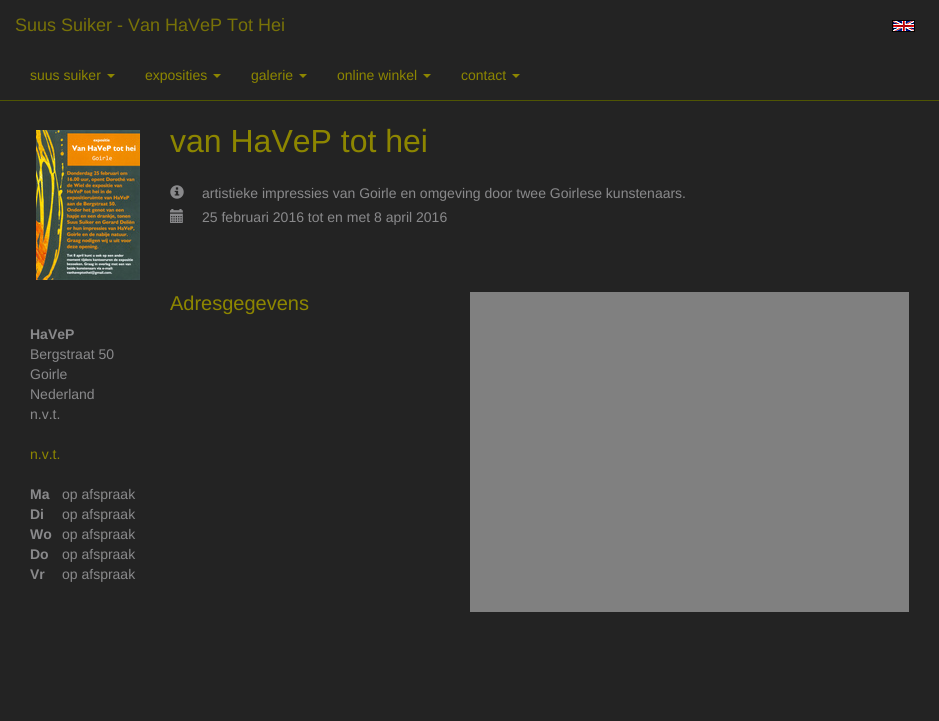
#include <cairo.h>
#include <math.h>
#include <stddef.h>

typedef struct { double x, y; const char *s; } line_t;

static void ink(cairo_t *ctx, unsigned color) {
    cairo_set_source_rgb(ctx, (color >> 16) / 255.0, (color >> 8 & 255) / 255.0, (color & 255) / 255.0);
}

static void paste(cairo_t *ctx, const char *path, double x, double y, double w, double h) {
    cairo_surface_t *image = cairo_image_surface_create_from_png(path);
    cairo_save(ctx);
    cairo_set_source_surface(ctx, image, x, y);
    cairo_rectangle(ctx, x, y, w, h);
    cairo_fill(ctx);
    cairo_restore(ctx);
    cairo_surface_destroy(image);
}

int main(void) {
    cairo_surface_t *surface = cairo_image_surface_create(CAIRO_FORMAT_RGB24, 939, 721);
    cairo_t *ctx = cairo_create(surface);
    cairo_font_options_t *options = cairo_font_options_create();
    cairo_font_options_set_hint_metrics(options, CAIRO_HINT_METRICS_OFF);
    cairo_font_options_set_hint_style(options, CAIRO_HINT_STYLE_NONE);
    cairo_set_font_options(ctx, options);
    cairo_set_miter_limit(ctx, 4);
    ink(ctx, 0x232323);
    cairo_paint(ctx);
    ink(ctx, 0x4F5503);
    cairo_rectangle(ctx, 0, 100, 939, 1);
    cairo_fill(ctx);
    cairo_select_font_face(ctx, "Liberation Sans", CAIRO_FONT_SLANT_NORMAL, CAIRO_FONT_WEIGHT_NORMAL);
    cairo_set_font_size(ctx, 18);
    ink(ctx, 0x787207);
    cairo_move_to(ctx, 15, 31);
    cairo_show_text(ctx, "Suus Suiker - Van HaVeP Tot Hei");
    paste(ctx, "media/1.png", 892, 20, 23, 12);
    cairo_set_font_size(ctx, 14);
    ink(ctx, 0x8D8600);
    cairo_move_to(ctx, 30, 80);
    cairo_show_text(ctx, "suus suiker");
    cairo_new_path(ctx);
    cairo_move_to(ctx, 107, 74);
    cairo_line_to(ctx, 115, 74);
    cairo_line_to(ctx, 111, 78);
    cairo_close_path(ctx);
    cairo_fill(ctx);
    cairo_move_to(ctx, 145, 80);
    cairo_show_text(ctx, "exposities");
    cairo_new_path(ctx);
    cairo_move_to(ctx, 213, 74);
    cairo_line_to(ctx, 221, 74);
    cairo_line_to(ctx, 217, 78);
    cairo_close_path(ctx);
    cairo_fill(ctx);
    cairo_move_to(ctx, 251, 80);
    cairo_show_text(ctx, "galerie");
    cairo_new_path(ctx);
    cairo_move_to(ctx, 299, 74);
    cairo_line_to(ctx, 307, 74);
    cairo_line_to(ctx, 303, 78);
    cairo_close_path(ctx);
    cairo_fill(ctx);
    cairo_move_to(ctx, 337, 80);
    cairo_show_text(ctx, "online winkel");
    cairo_new_path(ctx);
    cairo_move_to(ctx, 423, 74);
    cairo_line_to(ctx, 431, 74);
    cairo_line_to(ctx, 427, 78);
    cairo_close_path(ctx);
    cairo_fill(ctx);
    cairo_move_to(ctx, 461, 80);
    cairo_show_text(ctx, "contact");
    cairo_new_path(ctx);
    cairo_move_to(ctx, 512, 74);
    cairo_line_to(ctx, 520, 74);
    cairo_line_to(ctx, 516, 78);
    cairo_close_path(ctx);
    cairo_fill(ctx);
    paste(ctx, "media/2.png", 36, 130, 104, 150);
    cairo_set_font_size(ctx, 32);
    cairo_move_to(ctx, 170, 152);
    cairo_show_text(ctx, "van HaVeP tot hei");
    paste(ctx, "media/3.png", 170, 185, 14, 14);
    cairo_set_font_size(ctx, 14);
    ink(ctx, 0x89898B);
    cairo_move_to(ctx, 202, 198);
    cairo_show_text(ctx, "artistieke impressies van Goirle en omgeving door twee Goirlese kunstenaars.");
    paste(ctx, "media/4.png", 170, 209, 13, 14);
    cairo_move_to(ctx, 202, 222);
    cairo_show_text(ctx, "25 februari 2016 tot en met 8 april 2016");
    cairo_set_font_size(ctx, 20);
    ink(ctx, 0x8D8600);
    cairo_move_to(ctx, 170, 310);
    cairo_show_text(ctx, "Adresgegevens");
    ink(ctx, 0x808080);
    cairo_rectangle(ctx, 470, 292, 439, 320);
    cairo_fill(ctx);
    cairo_select_font_face(ctx, "Liberation Sans", CAIRO_FONT_SLANT_NORMAL, CAIRO_FONT_WEIGHT_BOLD);
    cairo_set_font_size(ctx, 14);
    ink(ctx, 0x89898B);
    cairo_move_to(ctx, 30, 339);
    cairo_show_text(ctx, "HaVeP");
    cairo_select_font_face(ctx, "Liberation Sans", CAIRO_FONT_SLANT_NORMAL, CAIRO_FONT_WEIGHT_NORMAL);
    {
        static const line_t items[] = {
            {30, 359, "Bergstraat 50"},
            {30, 379, "Goirle"},
            {30, 399, "Nederland"},
            {30, 419, "n.v.t."},
        };
        for (size_t i = 0; i < sizeof items / sizeof *items; i++) {
            cairo_move_to(ctx, items[i].x, items[i].y);
            cairo_show_text(ctx, items[i].s);
        }
    }
    ink(ctx, 0x8D8600);
    cairo_move_to(ctx, 30, 459);
    cairo_show_text(ctx, "n.v.t.");
    cairo_select_font_face(ctx, "Liberation Sans", CAIRO_FONT_SLANT_NORMAL, CAIRO_FONT_WEIGHT_BOLD);
    ink(ctx, 0x89898B);
    cairo_move_to(ctx, 30, 499);
    cairo_show_text(ctx, "Ma");
    cairo_select_font_face(ctx, "Liberation Sans", CAIRO_FONT_SLANT_NORMAL, CAIRO_FONT_WEIGHT_NORMAL);
    cairo_move_to(ctx, 62, 499);
    cairo_show_text(ctx, "op afspraak");
    cairo_select_font_face(ctx, "Liberation Sans", CAIRO_FONT_SLANT_NORMAL, CAIRO_FONT_WEIGHT_BOLD);
    cairo_move_to(ctx, 30, 519);
    cairo_show_text(ctx, "Di");
    cairo_select_font_face(ctx, "Liberation Sans", CAIRO_FONT_SLANT_NORMAL, CAIRO_FONT_WEIGHT_NORMAL);
    cairo_move_to(ctx, 62, 519);
    cairo_show_text(ctx, "op afspraak");
    cairo_select_font_face(ctx, "Liberation Sans", CAIRO_FONT_SLANT_NORMAL, CAIRO_FONT_WEIGHT_BOLD);
    cairo_move_to(ctx, 30, 539);
    cairo_show_text(ctx, "Wo");
    cairo_select_font_face(ctx, "Liberation Sans", CAIRO_FONT_SLANT_NORMAL, CAIRO_FONT_WEIGHT_NORMAL);
    cairo_move_to(ctx, 62, 539);
    cairo_show_text(ctx, "op afspraak");
    cairo_select_font_face(ctx, "Liberation Sans", CAIRO_FONT_SLANT_NORMAL, CAIRO_FONT_WEIGHT_BOLD);
    cairo_move_to(ctx, 30, 559);
    cairo_show_text(ctx, "Do");
    cairo_select_font_face(ctx, "Liberation Sans", CAIRO_FONT_SLANT_NORMAL, CAIRO_FONT_WEIGHT_NORMAL);
    cairo_move_to(ctx, 62, 559);
    cairo_show_text(ctx, "op afspraak");
    cairo_select_font_face(ctx, "Liberation Sans", CAIRO_FONT_SLANT_NORMAL, CAIRO_FONT_WEIGHT_BOLD);
    cairo_move_to(ctx, 30, 579);
    cairo_show_text(ctx, "Vr");
    cairo_select_font_face(ctx, "Liberation Sans", CAIRO_FONT_SLANT_NORMAL, CAIRO_FONT_WEIGHT_NORMAL);
    cairo_move_to(ctx, 62, 579);
    cairo_show_text(ctx, "op afspraak");
    cairo_surface_write_to_png(surface, "image.png");
    cairo_font_options_destroy(options);
    cairo_destroy(ctx);
    cairo_surface_destroy(surface);
    return 0;
}
